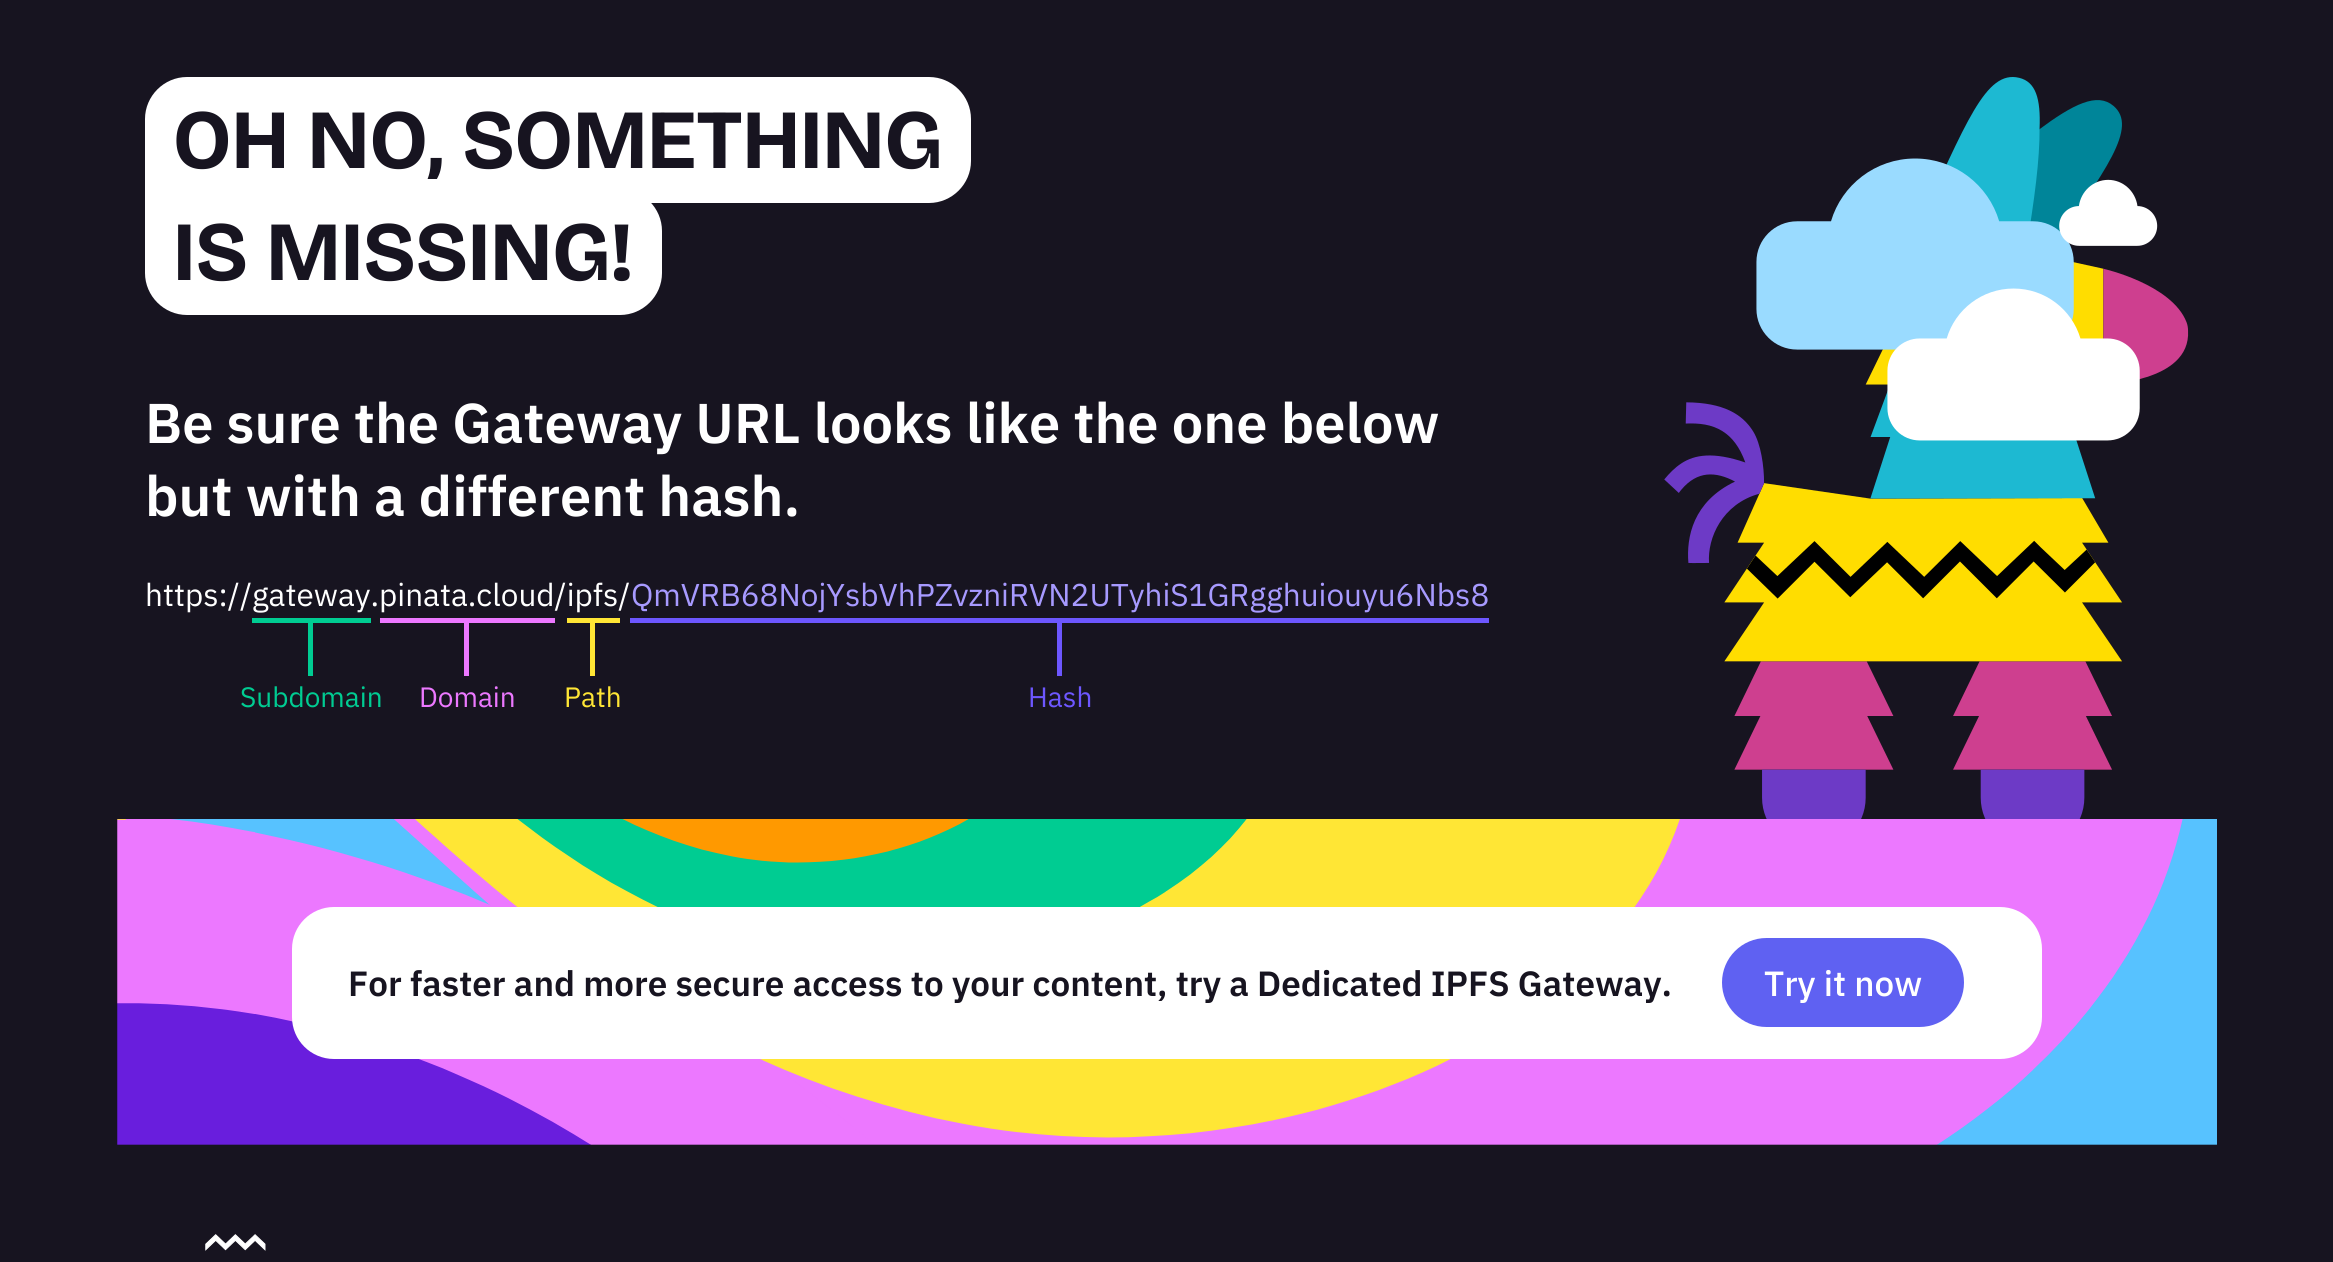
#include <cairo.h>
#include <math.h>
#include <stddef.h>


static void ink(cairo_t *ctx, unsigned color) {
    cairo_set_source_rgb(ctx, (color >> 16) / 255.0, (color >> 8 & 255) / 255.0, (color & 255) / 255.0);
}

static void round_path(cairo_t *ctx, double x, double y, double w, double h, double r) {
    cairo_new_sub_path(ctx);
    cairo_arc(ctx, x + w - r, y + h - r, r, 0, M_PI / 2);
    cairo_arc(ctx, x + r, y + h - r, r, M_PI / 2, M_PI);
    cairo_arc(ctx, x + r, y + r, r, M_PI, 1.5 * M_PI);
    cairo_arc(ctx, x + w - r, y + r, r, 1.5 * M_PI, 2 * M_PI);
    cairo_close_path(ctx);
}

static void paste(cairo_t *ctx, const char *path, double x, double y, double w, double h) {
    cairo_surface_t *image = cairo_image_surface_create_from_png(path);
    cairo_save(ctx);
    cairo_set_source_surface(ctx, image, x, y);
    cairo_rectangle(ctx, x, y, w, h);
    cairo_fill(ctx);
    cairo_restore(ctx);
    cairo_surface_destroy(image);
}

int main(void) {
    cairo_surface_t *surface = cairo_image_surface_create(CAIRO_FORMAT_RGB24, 2333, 1262);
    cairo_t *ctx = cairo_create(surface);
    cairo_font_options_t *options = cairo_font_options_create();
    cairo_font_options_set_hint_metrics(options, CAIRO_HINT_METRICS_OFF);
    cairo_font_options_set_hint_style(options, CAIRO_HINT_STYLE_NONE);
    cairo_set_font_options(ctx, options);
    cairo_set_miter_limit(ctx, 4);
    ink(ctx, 0x171420);
    cairo_paint(ctx);
    ink(ctx, 0xFFFFFF);
    cairo_new_path(ctx);
    cairo_move_to(ctx, 187, 77);
    cairo_line_to(ctx, 929, 77);
    cairo_curve_to(ctx, 952, 77, 971, 96, 971, 119);
    cairo_line_to(ctx, 971, 161);
    cairo_curve_to(ctx, 971, 184, 952, 203, 929, 203);
    cairo_line_to(ctx, 145, 203);
    cairo_line_to(ctx, 145, 119);
    cairo_curve_to(ctx, 145, 96, 164, 77, 187, 77);
    cairo_close_path(ctx);
    cairo_fill(ctx);
    cairo_select_font_face(ctx, "Bricolage Grotesque", CAIRO_FONT_SLANT_NORMAL, CAIRO_FONT_WEIGHT_BOLD);
    cairo_set_font_size(ctx, 84);
    ink(ctx, 0x171420);
    cairo_move_to(ctx, 173, 168);
    cairo_show_text(ctx, "OH NO, SOMETHING");
    ink(ctx, 0xFFFFFF);
    cairo_new_path(ctx);
    cairo_move_to(ctx, 145, 189);
    cairo_line_to(ctx, 620, 189);
    cairo_curve_to(ctx, 643, 189, 662, 208, 662, 231);
    cairo_line_to(ctx, 662, 273);
    cairo_curve_to(ctx, 662, 296, 643, 315, 620, 315);
    cairo_line_to(ctx, 187, 315);
    cairo_curve_to(ctx, 164, 315, 145, 296, 145, 273);
    cairo_close_path(ctx);
    cairo_fill(ctx);
    ink(ctx, 0x171420);
    cairo_move_to(ctx, 173, 280);
    cairo_show_text(ctx, "IS MISSING!");
    cairo_select_font_face(ctx, "IBM Plex Sans SemiBold", CAIRO_FONT_SLANT_NORMAL, CAIRO_FONT_WEIGHT_NORMAL);
    cairo_set_font_size(ctx, 56);
    ink(ctx, 0xFFFFFF);
    cairo_move_to(ctx, 145, 443);
    cairo_show_text(ctx, "Be sure the Gateway URL looks like the one below");
    cairo_move_to(ctx, 145, 516);
    cairo_show_text(ctx, "but with a different hash.");
    cairo_select_font_face(ctx, "IBM Plex Sans", CAIRO_FONT_SLANT_NORMAL, CAIRO_FONT_WEIGHT_NORMAL);
    cairo_set_font_size(ctx, 31.5);
    cairo_move_to(ctx, 145, 606);
    cairo_show_text(ctx, "https://gateway.pinata.cloud/ipfs/");
    ink(ctx, 0x6D57FF);
    cairo_rectangle(ctx, 630, 618, 859, 5);
    cairo_fill(ctx);
    ink(ctx, 0xA79AFF);
    cairo_move_to(ctx, 631, 606);
    cairo_show_text(ctx, "QmVRB68NojYsbVhPZvzniRVN2UTyhiS1GRgghuiouyu6Nbs8");
    ink(ctx, 0x6D57FF);
    cairo_rectangle(ctx, 1057, 623, 5, 53);
    cairo_fill(ctx);
    cairo_set_font_size(ctx, 28);
    cairo_move_to(ctx, 1028, 707);
    cairo_show_text(ctx, "Hash");
    ink(ctx, 0x00CC92);
    cairo_rectangle(ctx, 252, 618, 119, 5);
    cairo_fill(ctx);
    cairo_rectangle(ctx, 308, 623, 5, 53);
    cairo_fill(ctx);
    cairo_move_to(ctx, 240, 707);
    cairo_show_text(ctx, "Subdomain");
    ink(ctx, 0xEC78FF);
    cairo_rectangle(ctx, 380, 618, 175, 5);
    cairo_fill(ctx);
    cairo_rectangle(ctx, 464, 623, 5, 53);
    cairo_fill(ctx);
    cairo_move_to(ctx, 419, 707);
    cairo_show_text(ctx, "Domain");
    ink(ctx, 0xFFE635);
    cairo_rectangle(ctx, 567, 618, 53, 5);
    cairo_fill(ctx);
    cairo_rectangle(ctx, 590, 623, 5, 53);
    cairo_fill(ctx);
    cairo_move_to(ctx, 564, 707);
    cairo_show_text(ctx, "Path");
    paste(ctx, "media/1.png", 1664, 77, 525, 742);
    paste(ctx, "media/2.png", 117, 819, 2100, 326);
    ink(ctx, 0xFFFFFF);
    round_path(ctx, 292, 907, 1750, 152, 42);
    cairo_fill(ctx);
    cairo_select_font_face(ctx, "IBM Plex Sans SemiBold", CAIRO_FONT_SLANT_NORMAL, CAIRO_FONT_WEIGHT_NORMAL);
    cairo_set_font_size(ctx, 35);
    ink(ctx, 0x171420);
    cairo_move_to(ctx, 348, 996);
    cairo_show_text(ctx, "For faster and more secure access to your content, try a Dedicated IPFS Gateway.");
    ink(ctx, 0x5F61F2);
    round_path(ctx, 1722, 938, 242, 89, 44.5);
    cairo_fill(ctx);
    cairo_select_font_face(ctx, "IBM Plex Sans Medium", CAIRO_FONT_SLANT_NORMAL, CAIRO_FONT_WEIGHT_NORMAL);
    ink(ctx, 0xFFFFFF);
    cairo_move_to(ctx, 1764, 996);
    cairo_show_text(ctx, "Try it now");
    paste(ctx, "media/3.png", 205, 1234, 61, 17);
    cairo_surface_write_to_png(surface, "image.png");
    cairo_font_options_destroy(options);
    cairo_destroy(ctx);
    cairo_surface_destroy(surface);
    return 0;
}
